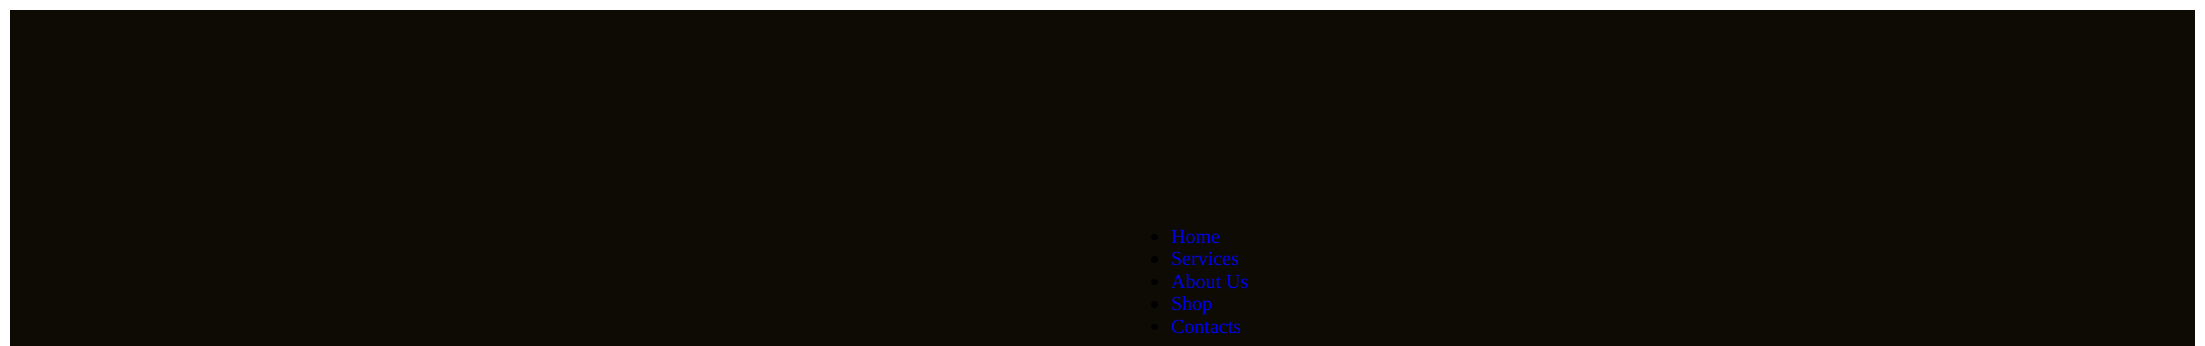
#include <cairo.h>
#include <math.h>
#include <stddef.h>


static void ink(cairo_t *ctx, unsigned color) {
    cairo_set_source_rgb(ctx, (color >> 16) / 255.0, (color >> 8 & 255) / 255.0, (color & 255) / 255.0);
}

static void round_path(cairo_t *ctx, double x, double y, double w, double h, double r) {
    cairo_new_sub_path(ctx);
    cairo_arc(ctx, x + w - r, y + h - r, r, 0, M_PI / 2);
    cairo_arc(ctx, x + r, y + h - r, r, M_PI / 2, M_PI);
    cairo_arc(ctx, x + r, y + r, r, M_PI, 1.5 * M_PI);
    cairo_arc(ctx, x + w - r, y + r, r, 1.5 * M_PI, 2 * M_PI);
    cairo_close_path(ctx);
}

int main(void) {
    cairo_surface_t *surface = cairo_image_surface_create(CAIRO_FORMAT_RGB24, 2205, 346);
    cairo_t *ctx = cairo_create(surface);
    cairo_font_options_t *options = cairo_font_options_create();
    cairo_font_options_set_hint_metrics(options, CAIRO_HINT_METRICS_OFF);
    cairo_font_options_set_hint_style(options, CAIRO_HINT_STYLE_NONE);
    cairo_set_font_options(ctx, options);
    cairo_set_miter_limit(ctx, 4);
    ink(ctx, 0xFFFFFF);
    cairo_paint(ctx);
    ink(ctx, 0x0E0B05);
    cairo_rectangle(ctx, 10, 10, 2185, 336);
    cairo_fill(ctx);
    ink(ctx, 0x000000);
    round_path(ctx, 1151, 234, 7, 6, 3);
    cairo_fill(ctx);
    cairo_select_font_face(ctx, "Liberation Serif", CAIRO_FONT_SLANT_NORMAL, CAIRO_FONT_WEIGHT_NORMAL);
    cairo_set_font_size(ctx, 20);
    ink(ctx, 0x0000EE);
    cairo_move_to(ctx, 1171, 243);
    cairo_show_text(ctx, "Home");
    ink(ctx, 0x000000);
    cairo_new_path(ctx);
    cairo_arc(ctx, 1154.5, 259.5, 3.5, 0, 2 * M_PI);
    cairo_fill(ctx);
    ink(ctx, 0x0000EE);
    cairo_move_to(ctx, 1171, 265);
    cairo_show_text(ctx, "Services");
    ink(ctx, 0x000000);
    round_path(ctx, 1151, 279, 7, 6, 3);
    cairo_fill(ctx);
    ink(ctx, 0x0000EE);
    cairo_move_to(ctx, 1171, 288);
    cairo_show_text(ctx, "About Us");
    ink(ctx, 0x000000);
    cairo_new_path(ctx);
    cairo_arc(ctx, 1154.5, 304.5, 3.5, 0, 2 * M_PI);
    cairo_fill(ctx);
    ink(ctx, 0x0000EE);
    cairo_move_to(ctx, 1171, 310);
    cairo_show_text(ctx, "Shop");
    ink(ctx, 0x000000);
    round_path(ctx, 1151, 324, 7, 6, 3);
    cairo_fill(ctx);
    ink(ctx, 0x0000EE);
    cairo_move_to(ctx, 1171, 333);
    cairo_show_text(ctx, "Contacts");
    cairo_surface_write_to_png(surface, "image.png");
    cairo_font_options_destroy(options);
    cairo_destroy(ctx);
    cairo_surface_destroy(surface);
    return 0;
}
